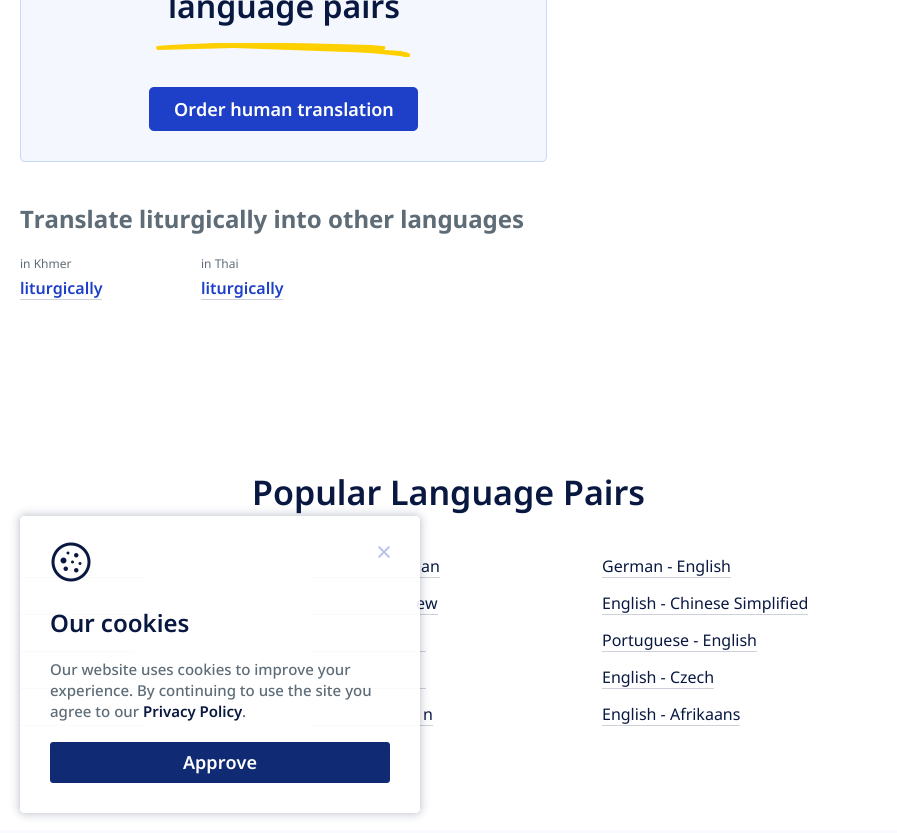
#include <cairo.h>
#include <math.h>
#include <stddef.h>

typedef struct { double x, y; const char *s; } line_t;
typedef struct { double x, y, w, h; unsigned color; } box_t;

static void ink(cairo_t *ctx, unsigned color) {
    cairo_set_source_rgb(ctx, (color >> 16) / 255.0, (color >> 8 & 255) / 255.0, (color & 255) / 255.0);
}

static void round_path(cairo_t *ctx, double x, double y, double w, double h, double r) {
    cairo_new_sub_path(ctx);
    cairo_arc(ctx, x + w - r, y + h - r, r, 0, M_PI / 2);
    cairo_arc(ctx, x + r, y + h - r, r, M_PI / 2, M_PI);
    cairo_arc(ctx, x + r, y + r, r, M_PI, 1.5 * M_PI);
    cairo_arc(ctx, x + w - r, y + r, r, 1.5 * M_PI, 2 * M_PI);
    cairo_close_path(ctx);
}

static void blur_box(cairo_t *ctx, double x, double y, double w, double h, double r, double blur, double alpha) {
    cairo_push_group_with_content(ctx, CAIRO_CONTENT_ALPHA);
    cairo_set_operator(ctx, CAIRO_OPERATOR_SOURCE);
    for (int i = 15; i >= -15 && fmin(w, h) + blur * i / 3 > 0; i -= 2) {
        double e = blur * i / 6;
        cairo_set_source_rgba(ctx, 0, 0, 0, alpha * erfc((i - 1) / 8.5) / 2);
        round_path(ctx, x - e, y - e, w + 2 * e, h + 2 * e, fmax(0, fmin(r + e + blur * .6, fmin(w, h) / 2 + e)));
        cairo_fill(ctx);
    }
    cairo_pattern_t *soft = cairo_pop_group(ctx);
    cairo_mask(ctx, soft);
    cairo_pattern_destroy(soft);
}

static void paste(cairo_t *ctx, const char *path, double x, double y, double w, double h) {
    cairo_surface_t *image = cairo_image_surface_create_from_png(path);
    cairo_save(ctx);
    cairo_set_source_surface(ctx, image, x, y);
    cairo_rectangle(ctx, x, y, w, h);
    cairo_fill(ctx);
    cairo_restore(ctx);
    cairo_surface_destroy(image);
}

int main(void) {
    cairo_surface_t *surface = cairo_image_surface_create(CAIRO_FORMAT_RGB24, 897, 833);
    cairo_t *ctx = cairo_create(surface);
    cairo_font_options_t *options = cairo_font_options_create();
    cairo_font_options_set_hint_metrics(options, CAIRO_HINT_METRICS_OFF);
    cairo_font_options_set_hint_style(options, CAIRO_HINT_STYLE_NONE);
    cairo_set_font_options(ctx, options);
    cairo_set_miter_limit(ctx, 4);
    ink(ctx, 0xFFFFFF);
    cairo_paint(ctx);
    ink(ctx, 0xF4F7FD);
    round_path(ctx, 20.5, -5.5, 526, 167, 4.5);
    cairo_fill_preserve(ctx);
    ink(ctx, 0xC9D8F5);
    cairo_set_line_width(ctx, 1);
    cairo_stroke(ctx);
    cairo_select_font_face(ctx, "Noto Sans SemiBold", CAIRO_FONT_SLANT_NORMAL, CAIRO_FONT_WEIGHT_NORMAL);
    cairo_set_font_size(ctx, 32);
    ink(ctx, 0x091841);
    cairo_move_to(ctx, 168, 18);
    cairo_show_text(ctx, "language pairs");
    cairo_save(ctx);
    cairo_rectangle(ctx, 156, 43, 254, 14);
    cairo_clip(ctx);
    ink(ctx, 0xFFD000);
    cairo_set_fill_rule(ctx, CAIRO_FILL_RULE_EVEN_ODD);
    cairo_new_path(ctx);
    cairo_move_to(ctx, 158, 50);
    cairo_line_to(ctx, 234, 48);
    cairo_line_to(ctx, 318, 51);
    cairo_curve_to(ctx, 342, 52, 366, 52, 390, 55);
    cairo_line_to(ctx, 400, 56);
    cairo_curve_to(ctx, 402, 56, 408, 59, 410, 56);
    cairo_curve_to(ctx, 412, 52, 402, 52, 401, 51);
    cairo_line_to(ctx, 384, 50);
    cairo_curve_to(ctx, 385, 49, 386, 48, 385, 47);
    cairo_curve_to(ctx, 385, 46, 384, 46, 383, 46);
    cairo_line_to(ctx, 371, 45);
    cairo_line_to(ctx, 335, 44);
    cairo_curve_to(ctx, 296, 43, 256, 42, 216, 43);
    cairo_curve_to(ctx, 197, 44, 177, 44, 158, 46);
    cairo_curve_to(ctx, 155, 46, 156, 50, 158, 50);
    cairo_fill(ctx);
    cairo_restore(ctx);
    ink(ctx, 0x1E40C8);
    round_path(ctx, 149, 87, 269, 44, 5);
    cairo_fill(ctx);
    cairo_set_font_size(ctx, 18);
    ink(ctx, 0xFFFFFF);
    cairo_move_to(ctx, 174, 116);
    cairo_show_text(ctx, "Order human translation");
    cairo_select_font_face(ctx, "Noto Sans", CAIRO_FONT_SLANT_NORMAL, CAIRO_FONT_WEIGHT_BOLD);
    cairo_set_font_size(ctx, 24);
    ink(ctx, 0x5E6C77);
    cairo_move_to(ctx, 20, 228);
    cairo_show_text(ctx, "Translate liturgically into other languages");
    cairo_select_font_face(ctx, "Noto Sans", CAIRO_FONT_SLANT_NORMAL, CAIRO_FONT_WEIGHT_NORMAL);
    cairo_set_font_size(ctx, 12);
    cairo_move_to(ctx, 20, 268);
    cairo_show_text(ctx, "in Khmer");
    cairo_select_font_face(ctx, "Noto Sans SemiBold", CAIRO_FONT_SLANT_NORMAL, CAIRO_FONT_WEIGHT_NORMAL);
    cairo_set_font_size(ctx, 16);
    ink(ctx, 0x1E40C8);
    cairo_move_to(ctx, 20, 294);
    cairo_show_text(ctx, "liturgically");
    ink(ctx, 0xCED1D9);
    cairo_rectangle(ctx, 20, 299, 82, 1);
    cairo_fill(ctx);
    cairo_select_font_face(ctx, "Noto Sans", CAIRO_FONT_SLANT_NORMAL, CAIRO_FONT_WEIGHT_NORMAL);
    cairo_set_font_size(ctx, 12);
    ink(ctx, 0x5E6C77);
    cairo_move_to(ctx, 201, 268);
    cairo_show_text(ctx, "in Thai");
    cairo_select_font_face(ctx, "Noto Sans SemiBold", CAIRO_FONT_SLANT_NORMAL, CAIRO_FONT_WEIGHT_NORMAL);
    cairo_set_font_size(ctx, 16);
    ink(ctx, 0x1E40C8);
    cairo_move_to(ctx, 201, 294);
    cairo_show_text(ctx, "liturgically");
    ink(ctx, 0xCED1D9);
    cairo_rectangle(ctx, 201, 299, 82, 1);
    cairo_fill(ctx);
    cairo_set_font_size(ctx, 34);
    ink(ctx, 0x091841);
    cairo_move_to(ctx, 252, 505);
    cairo_show_text(ctx, "Popular Language Pairs");
    cairo_select_font_face(ctx, "Noto Sans", CAIRO_FONT_SLANT_NORMAL, CAIRO_FONT_WEIGHT_NORMAL);
    cairo_set_font_size(ctx, 16);
    cairo_move_to(ctx, 421, 572);
    cairo_show_text(ctx, "an");
    ink(ctx, 0xCED1D9);
    cairo_rectangle(ctx, 311, 577, 129, 1);
    cairo_fill(ctx);
    ink(ctx, 0x091841);
    cairo_move_to(ctx, 602, 572);
    cairo_show_text(ctx, "German - English");
    ink(ctx, 0xCED1D9);
    cairo_rectangle(ctx, 602, 577, 129, 1);
    cairo_fill(ctx);
    cairo_rectangle(ctx, 20, 577, 127, 1);
    cairo_fill(ctx);
    ink(ctx, 0x091841);
    cairo_move_to(ctx, 416, 609);
    cairo_show_text(ctx, "ew");
    ink(ctx, 0xCED1D9);
    cairo_rectangle(ctx, 311, 614, 127, 1);
    cairo_fill(ctx);
    ink(ctx, 0x091841);
    cairo_move_to(ctx, 602, 609);
    cairo_show_text(ctx, "English - Chinese Simplified");
    ink(ctx, 0xCED1D9);
    cairo_rectangle(ctx, 602, 614, 206, 1);
    cairo_fill(ctx);
    cairo_rectangle(ctx, 20, 614, 119, 1);
    cairo_fill(ctx);
    ink(ctx, 0x091841);
    cairo_move_to(ctx, 602, 646);
    cairo_show_text(ctx, "Portuguese - English");
    {
        static const box_t items[] = {
            {602, 651, 155, 1, 0xCED1D9},
            {20, 651, 115, 1, 0xCED1D9},
            {311, 651, 115, 1, 0xCED1D9},
        };
        for (size_t i = 0; i < sizeof items / sizeof *items; i++) {
            ink(ctx, items[i].color);
            cairo_rectangle(ctx, items[i].x, items[i].y, items[i].w, items[i].h);
            cairo_fill(ctx);
        }
    }
    ink(ctx, 0x091841);
    cairo_move_to(ctx, 602, 683);
    cairo_show_text(ctx, "English - Czech");
    {
        static const box_t items[] = {
            {602, 688, 112, 1, 0xCED1D9},
            {20, 688, 136, 1, 0xCED1D9},
            {311, 688, 115, 1, 0xCED1D9},
        };
        for (size_t i = 0; i < sizeof items / sizeof *items; i++) {
            ink(ctx, items[i].color);
            cairo_rectangle(ctx, items[i].x, items[i].y, items[i].w, items[i].h);
            cairo_fill(ctx);
        }
    }
    ink(ctx, 0x091841);
    cairo_move_to(ctx, 423, 720);
    cairo_show_text(ctx, "n");
    ink(ctx, 0xCED1D9);
    cairo_rectangle(ctx, 311, 725, 122, 1);
    cairo_fill(ctx);
    ink(ctx, 0x091841);
    cairo_move_to(ctx, 602, 720);
    cairo_show_text(ctx, "English - Afrikaans");
    {
        static const box_t items[] = {
            {602, 725, 138, 1, 0xCED1D9},
            {20, 725, 127, 1, 0xCED1D9},
            {0, 830, 897, 3, 0xF9FAFE},
        };
        for (size_t i = 0; i < sizeof items / sizeof *items; i++) {
            ink(ctx, items[i].color);
            cairo_rectangle(ctx, items[i].x, items[i].y, items[i].w, items[i].h);
            cairo_fill(ctx);
        }
    }
    cairo_save(ctx);
    cairo_set_fill_rule(ctx, CAIRO_FILL_RULE_EVEN_ODD);
    cairo_new_path(ctx);
    cairo_move_to(ctx, 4, 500);
    cairo_line_to(ctx, 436, 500);
    cairo_line_to(ctx, 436, 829);
    cairo_line_to(ctx, 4, 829);
    cairo_close_path(ctx);
    cairo_move_to(ctx, 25, 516);
    cairo_line_to(ctx, 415, 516);
    cairo_curve_to(ctx, 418, 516, 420, 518, 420, 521);
    cairo_line_to(ctx, 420, 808);
    cairo_curve_to(ctx, 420, 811, 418, 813, 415, 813);
    cairo_line_to(ctx, 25, 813);
    cairo_curve_to(ctx, 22, 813, 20, 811, 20, 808);
    cairo_line_to(ctx, 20, 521);
    cairo_curve_to(ctx, 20, 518, 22, 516, 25, 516);
    cairo_close_path(ctx);
    cairo_clip(ctx);
    ink(ctx, 0x091841);
    blur_box(ctx, 20, 516, 400, 297, 5, 5, 0.3);
    cairo_restore(ctx);
    cairo_set_source_rgba(ctx, 1, 1, 1, 0.9);
    round_path(ctx, 20, 516, 400, 297, 5);
    cairo_fill(ctx);
    paste(ctx, "media/1.png", 51, 542, 40, 40);
    paste(ctx, "media/2.png", 378, 546, 12, 12);
    cairo_select_font_face(ctx, "Noto Sans SemiBold", CAIRO_FONT_SLANT_NORMAL, CAIRO_FONT_WEIGHT_NORMAL);
    cairo_set_font_size(ctx, 24);
    ink(ctx, 0x091841);
    cairo_move_to(ctx, 50, 632);
    cairo_show_text(ctx, "Our cookies");
    cairo_select_font_face(ctx, "Noto Sans Medium", CAIRO_FONT_SLANT_NORMAL, CAIRO_FONT_WEIGHT_NORMAL);
    cairo_set_font_size(ctx, 15);
    ink(ctx, 0x5E6C77);
    {
        static const line_t items[] = {
            {50, 675, "Our website uses cookies to improve your"},
            {50, 696, "experience. By continuing to use the site you"},
            {50, 717, "agree to our"},
        };
        for (size_t i = 0; i < sizeof items / sizeof *items; i++) {
            cairo_move_to(ctx, items[i].x, items[i].y);
            cairo_show_text(ctx, items[i].s);
        }
    }
    cairo_select_font_face(ctx, "Noto Sans SemiBold", CAIRO_FONT_SLANT_NORMAL, CAIRO_FONT_WEIGHT_NORMAL);
    ink(ctx, 0x091841);
    cairo_move_to(ctx, 143, 717);
    cairo_show_text(ctx, "Privacy Policy");
    cairo_select_font_face(ctx, "Noto Sans Medium", CAIRO_FONT_SLANT_NORMAL, CAIRO_FONT_WEIGHT_NORMAL);
    ink(ctx, 0x5E6C77);
    cairo_move_to(ctx, 242, 717);
    cairo_show_text(ctx, ".");
    ink(ctx, 0x102A73);
    round_path(ctx, 50, 742, 340, 41, 3);
    cairo_fill(ctx);
    cairo_select_font_face(ctx, "Noto Sans SemiBold", CAIRO_FONT_SLANT_NORMAL, CAIRO_FONT_WEIGHT_NORMAL);
    cairo_set_font_size(ctx, 18);
    ink(ctx, 0xFFFFFF);
    cairo_move_to(ctx, 183, 769);
    cairo_show_text(ctx, "Approve");
    cairo_surface_write_to_png(surface, "image.png");
    cairo_font_options_destroy(options);
    cairo_destroy(ctx);
    cairo_surface_destroy(surface);
    return 0;
}
